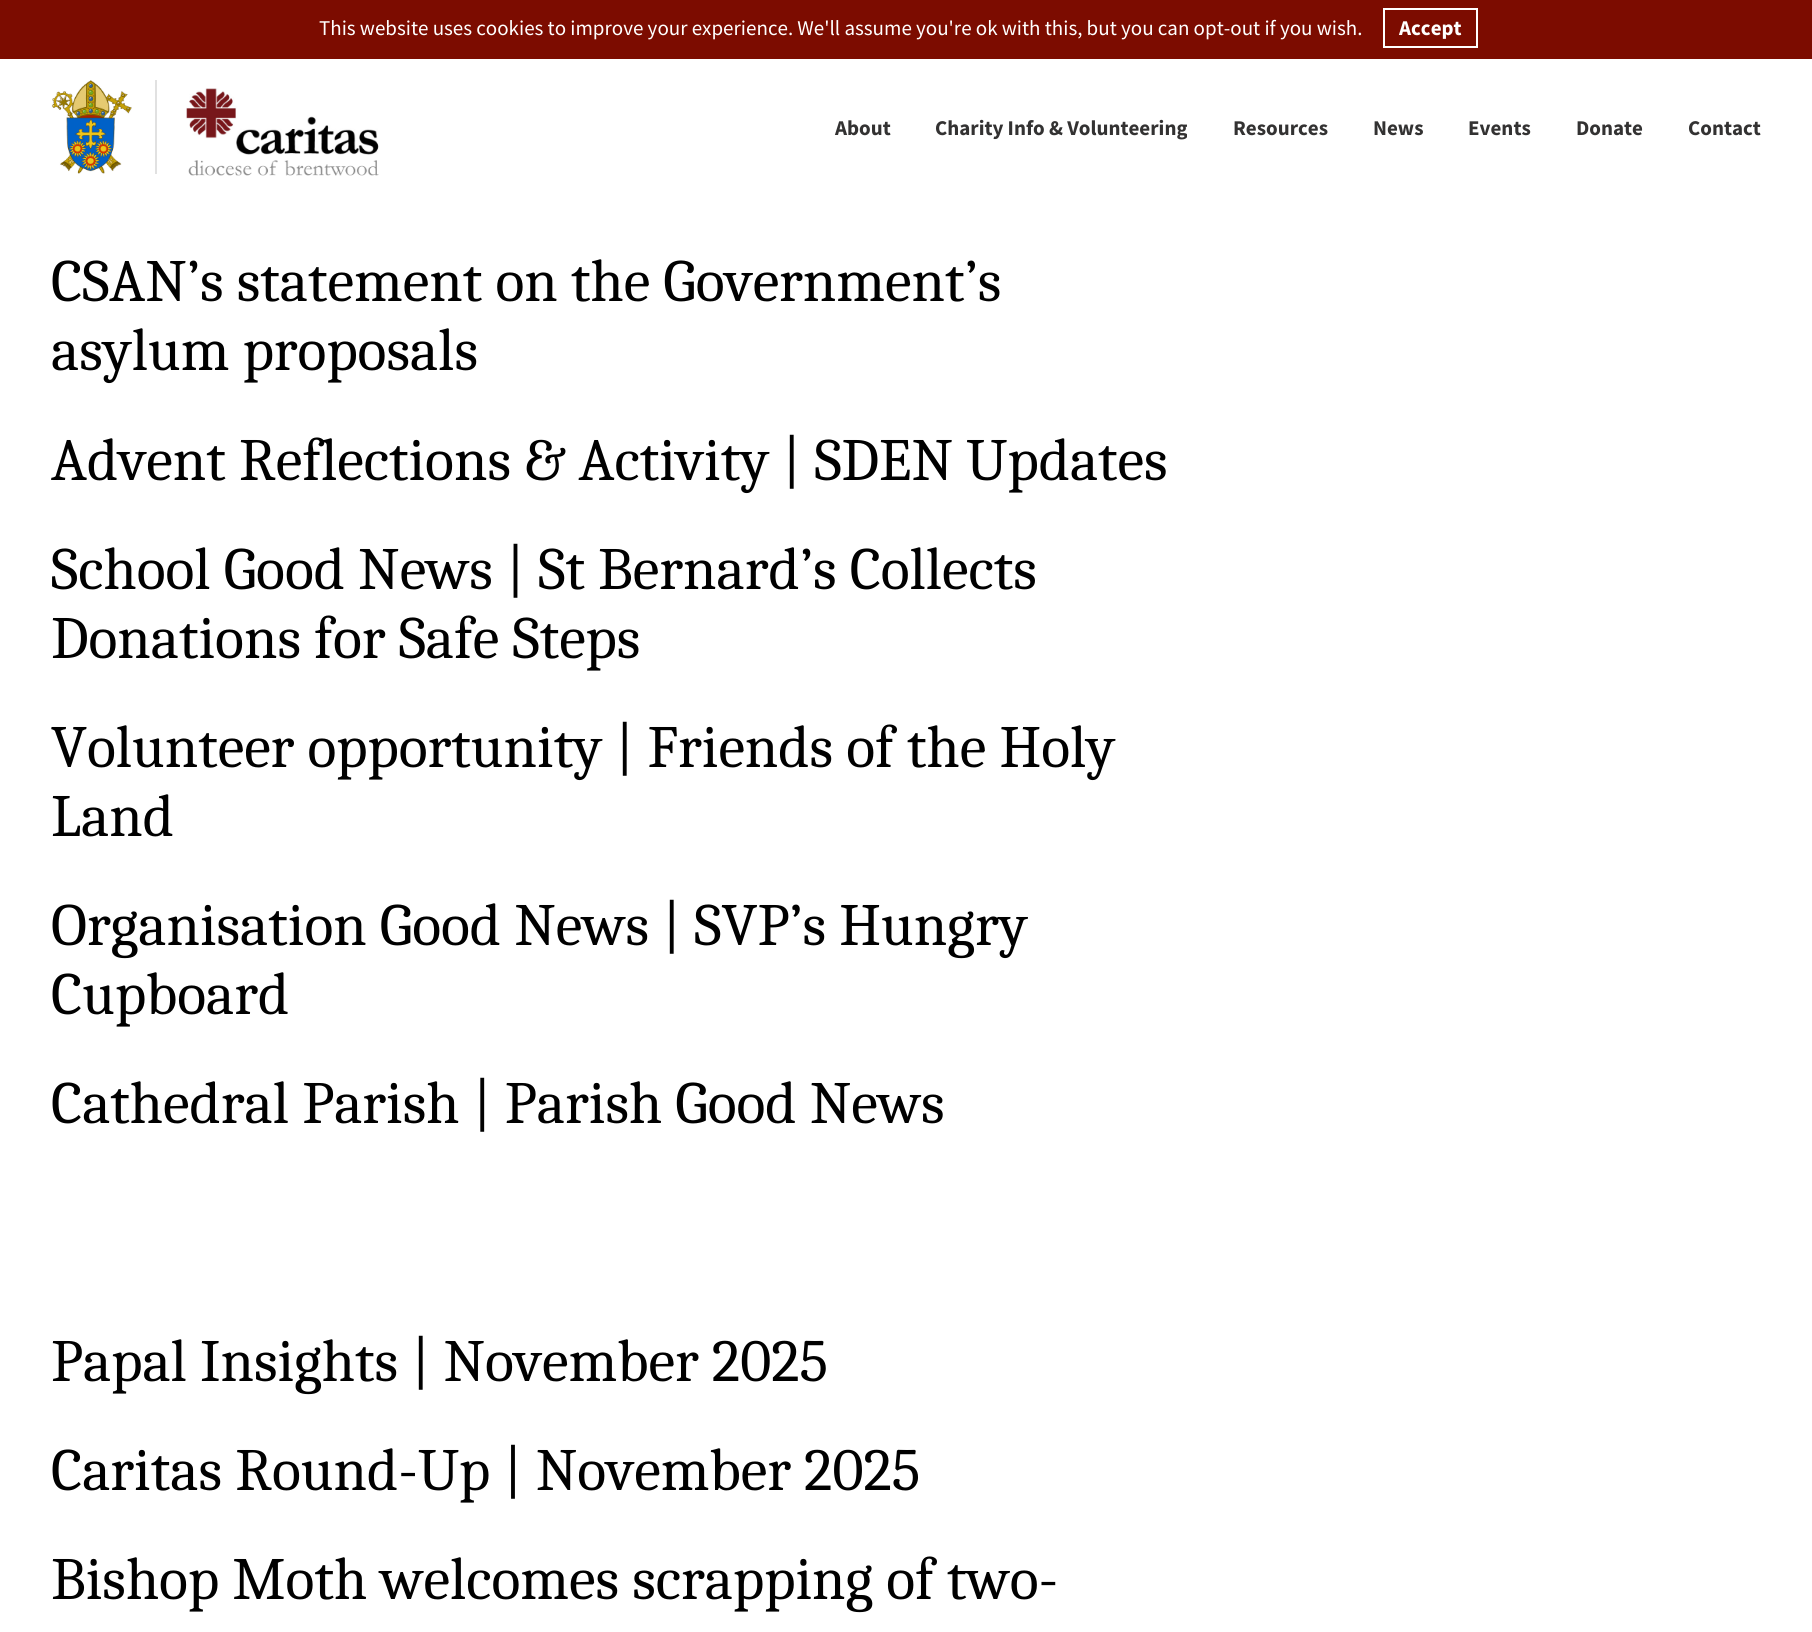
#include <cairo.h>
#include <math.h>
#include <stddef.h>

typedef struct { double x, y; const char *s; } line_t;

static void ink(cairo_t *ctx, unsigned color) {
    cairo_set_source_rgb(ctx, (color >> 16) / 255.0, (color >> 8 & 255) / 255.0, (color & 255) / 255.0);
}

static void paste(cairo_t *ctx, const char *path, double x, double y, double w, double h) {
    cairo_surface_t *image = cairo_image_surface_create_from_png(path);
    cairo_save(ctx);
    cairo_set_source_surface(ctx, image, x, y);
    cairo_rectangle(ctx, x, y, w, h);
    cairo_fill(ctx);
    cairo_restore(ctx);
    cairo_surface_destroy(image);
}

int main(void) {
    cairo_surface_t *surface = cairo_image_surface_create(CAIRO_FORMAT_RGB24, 1812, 1632);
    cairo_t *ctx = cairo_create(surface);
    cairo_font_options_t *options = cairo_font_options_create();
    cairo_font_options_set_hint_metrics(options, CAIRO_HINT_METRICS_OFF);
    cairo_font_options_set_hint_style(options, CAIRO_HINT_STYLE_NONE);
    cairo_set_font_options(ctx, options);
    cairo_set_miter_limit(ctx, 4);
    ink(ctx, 0xFFFFFF);
    cairo_paint(ctx);
    ink(ctx, 0x7C0C00);
    cairo_rectangle(ctx, 0, 0, 1812, 59);
    cairo_fill(ctx);
    cairo_select_font_face(ctx, "Source Sans Pro", CAIRO_FONT_SLANT_NORMAL, CAIRO_FONT_WEIGHT_NORMAL);
    cairo_set_font_size(ctx, 21);
    ink(ctx, 0xFFFFFF);
    cairo_move_to(ctx, 319, 35);
    cairo_show_text(ctx, "This website uses cookies to improve your experience. We'll assume you're ok with this, but you can opt-out if you wish.");
    cairo_rectangle(ctx, 1384, 9, 93, 38);
    cairo_stroke(ctx);
    cairo_select_font_face(ctx, "Source Sans Pro", CAIRO_FONT_SLANT_NORMAL, CAIRO_FONT_WEIGHT_BOLD);
    cairo_move_to(ctx, 1399, 35);
    cairo_show_text(ctx, "Accept");
    ink(ctx, 0xE1E1E1);
    cairo_rectangle(ctx, 155, 80, 2, 94);
    cairo_fill(ctx);
    paste(ctx, "media/1.png", 51, 80, 81, 94);
    paste(ctx, "media/2.png", 186, 88, 193, 88);
    ink(ctx, 0x333232);
    {
        static const line_t items[] = {
            {835, 135, "About"},
            {935, 135, "Charity Info & Volunteering"},
            {1233, 135, "Resources"},
            {1373, 135, "News"},
            {1468, 135, "Events"},
            {1576, 135, "Donate"},
            {1688, 135, "Contact"},
        };
        for (size_t i = 0; i < sizeof items / sizeof *items; i++) {
            cairo_move_to(ctx, items[i].x, items[i].y);
            cairo_show_text(ctx, items[i].s);
        }
    }
    cairo_select_font_face(ctx, "Caladea", CAIRO_FONT_SLANT_NORMAL, CAIRO_FONT_WEIGHT_NORMAL);
    cairo_set_font_size(ctx, 60);
    ink(ctx, 0x000000);
    {
        static const line_t items[] = {
            {51, 301, "CSAN’s statement on the Government’s"},
            {51, 370, "asylum proposals"},
            {51, 480, "Advent Reflections & Activity | SDEN Updates"},
            {51, 589, "School Good News | St Bernard’s Collects"},
            {51, 658, "Donations for Safe Steps"},
            {51, 767, "Volunteer opportunity | Friends of the Holy"},
            {51, 836, "Land"},
            {51, 945, "Organisation Good News | SVP’s Hungry"},
            {51, 1014, "Cupboard"},
            {51, 1123, "Cathedral Parish | Parish Good News"},
            {51, 1381, "Papal Insights | November 2025"},
            {51, 1490, "Caritas Round-Up | November 2025"},
            {51, 1599, "Bishop Moth welcomes scrapping of two-"},
        };
        for (size_t i = 0; i < sizeof items / sizeof *items; i++) {
            cairo_move_to(ctx, items[i].x, items[i].y);
            cairo_show_text(ctx, items[i].s);
        }
    }
    cairo_surface_write_to_png(surface, "image.png");
    cairo_font_options_destroy(options);
    cairo_destroy(ctx);
    cairo_surface_destroy(surface);
    return 0;
}
